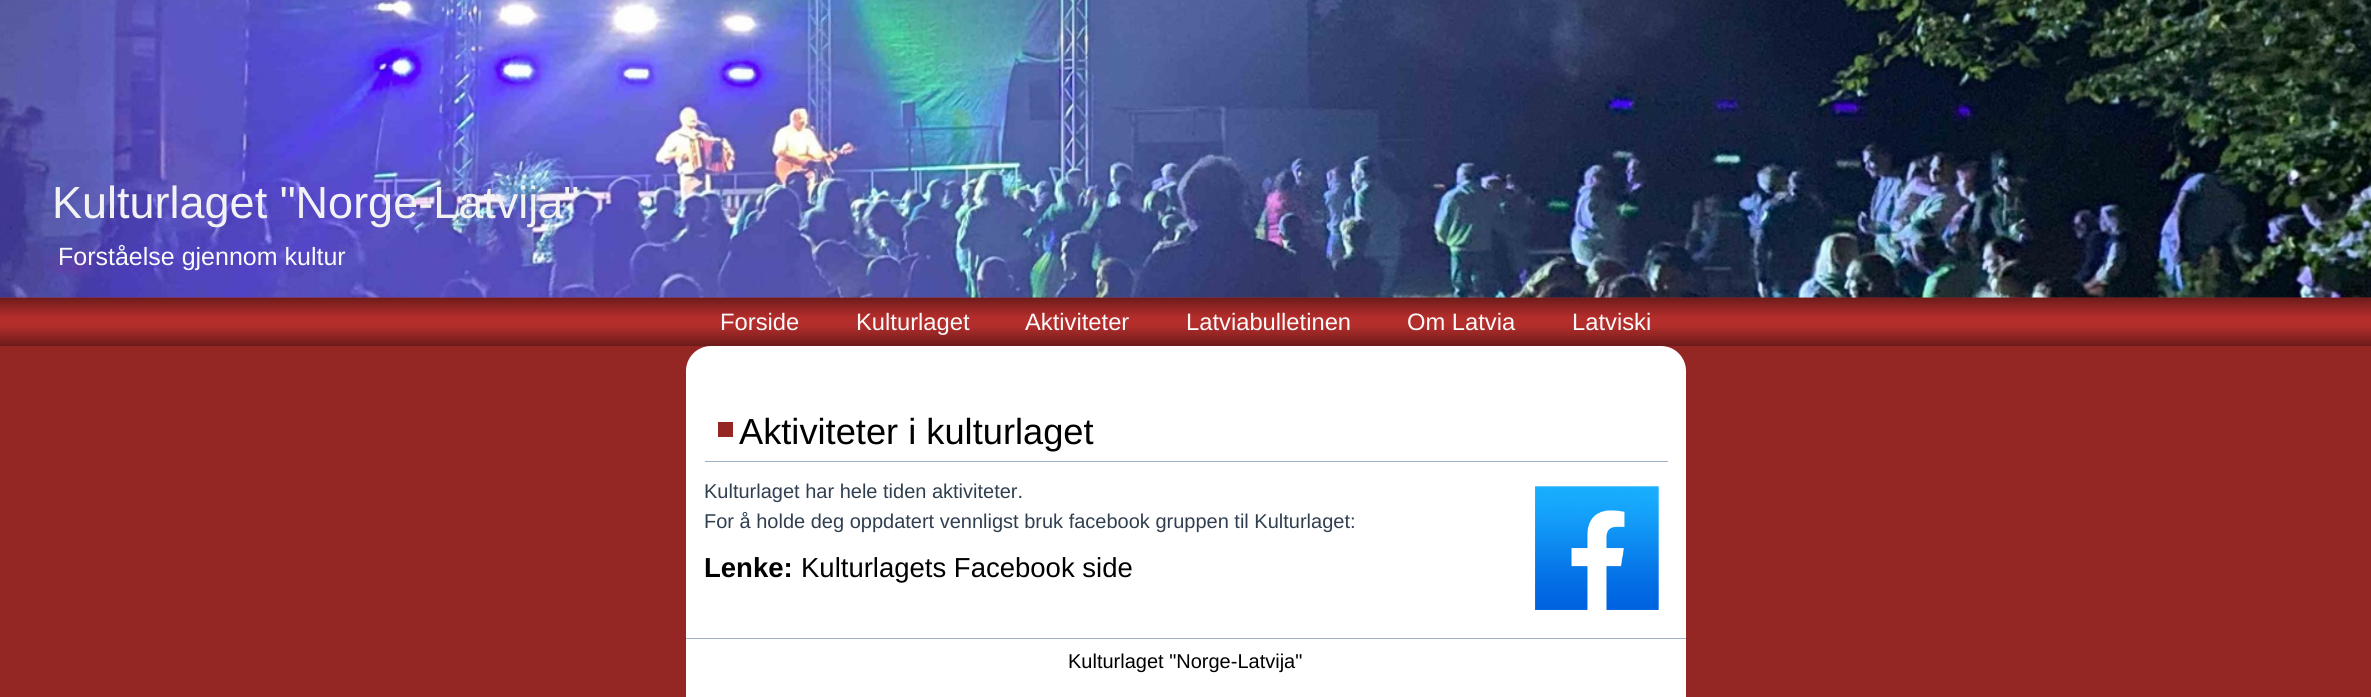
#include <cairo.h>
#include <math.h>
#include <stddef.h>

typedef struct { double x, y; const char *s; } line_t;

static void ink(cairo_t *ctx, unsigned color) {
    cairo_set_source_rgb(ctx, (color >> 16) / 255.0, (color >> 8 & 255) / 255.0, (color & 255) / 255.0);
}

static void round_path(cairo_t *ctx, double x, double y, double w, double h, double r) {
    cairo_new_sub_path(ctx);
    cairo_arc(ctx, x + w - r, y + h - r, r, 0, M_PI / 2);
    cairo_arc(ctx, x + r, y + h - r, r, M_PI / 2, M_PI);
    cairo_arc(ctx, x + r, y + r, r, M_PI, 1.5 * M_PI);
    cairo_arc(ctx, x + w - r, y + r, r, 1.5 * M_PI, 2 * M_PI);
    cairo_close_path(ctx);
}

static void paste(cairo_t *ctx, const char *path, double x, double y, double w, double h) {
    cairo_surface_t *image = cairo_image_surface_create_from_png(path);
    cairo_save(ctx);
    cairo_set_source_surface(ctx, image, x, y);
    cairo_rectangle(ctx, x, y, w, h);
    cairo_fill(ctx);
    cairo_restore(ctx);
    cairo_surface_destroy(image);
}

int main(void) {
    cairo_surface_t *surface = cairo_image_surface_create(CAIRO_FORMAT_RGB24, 2371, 697);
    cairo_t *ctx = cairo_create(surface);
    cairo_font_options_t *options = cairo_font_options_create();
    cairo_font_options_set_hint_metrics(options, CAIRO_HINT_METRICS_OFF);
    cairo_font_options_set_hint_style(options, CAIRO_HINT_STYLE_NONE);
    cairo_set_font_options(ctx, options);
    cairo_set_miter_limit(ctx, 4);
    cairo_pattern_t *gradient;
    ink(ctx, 0x942624);
    cairo_paint(ctx);
    paste(ctx, "media/1.png", 0, 0, 2371, 298);
    cairo_select_font_face(ctx, "Liberation Sans", CAIRO_FONT_SLANT_NORMAL, CAIRO_FONT_WEIGHT_NORMAL);
    cairo_set_font_size(ctx, 45);
    ink(ctx, 0xF2F2F2);
    cairo_move_to(ctx, 52, 218);
    cairo_show_text(ctx, "Kulturlaget \"Norge-Latvija\"");
    cairo_set_font_size(ctx, 25);
    ink(ctx, 0xFAFAFA);
    cairo_move_to(ctx, 58, 265);
    cairo_show_text(ctx, "Forståelse gjennom kultur");
    gradient = cairo_pattern_create_linear(1186, 297, 1186, 346);
    cairo_pattern_add_color_stop_rgba(gradient, 0, 0.42, 0.106, 0.102, 1);
    cairo_pattern_add_color_stop_rgba(gradient, 0.4, 0.694, 0.176, 0.169, 1);
    cairo_pattern_add_color_stop_rgba(gradient, 0.5, 0.71, 0.18, 0.173, 1);
    cairo_pattern_add_color_stop_rgba(gradient, 0.6, 0.694, 0.176, 0.169, 1);
    cairo_pattern_add_color_stop_rgba(gradient, 1, 0.42, 0.106, 0.102, 1);
    cairo_set_source(ctx, gradient);
    cairo_pattern_destroy(gradient);
    cairo_rectangle(ctx, 0, 298, 2371, 48);
    cairo_fill(ctx);
    cairo_set_font_size(ctx, 23.75);
    ink(ctx, 0xFAFAFA);
    {
        static const line_t items[] = {
            {720, 330, "Forside"},
            {856, 330, "Kulturlaget"},
            {1025, 330, "Aktiviteter"},
            {1186, 330, "Latviabulletinen"},
            {1407, 330, "Om Latvia"},
            {1572, 330, "Latviski"},
        };
        for (size_t i = 0; i < sizeof items / sizeof *items; i++) {
            cairo_move_to(ctx, items[i].x, items[i].y);
            cairo_show_text(ctx, items[i].s);
        }
    }
    ink(ctx, 0xFFFFFF);
    round_path(ctx, 686, 346, 1000, 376, 25);
    cairo_fill(ctx);
    ink(ctx, 0x9CAFC4);
    cairo_rectangle(ctx, 705, 461, 963, 1);
    cairo_fill(ctx);
    ink(ctx, 0x942624);
    cairo_rectangle(ctx, 718, 422, 15, 15);
    cairo_fill(ctx);
    cairo_set_font_size(ctx, 36.25);
    ink(ctx, 0x000000);
    cairo_move_to(ctx, 739, 444);
    cairo_show_text(ctx, "Aktiviteter i kulturlaget");
    cairo_set_font_size(ctx, 20);
    ink(ctx, 0x303F50);
    cairo_move_to(ctx, 704, 498);
    cairo_show_text(ctx, "Kulturlaget har hele tiden aktiviteter.");
    paste(ctx, "media/2.png", 1535, 486, 124, 124);
    cairo_move_to(ctx, 704, 528);
    cairo_show_text(ctx, "For å holde deg oppdatert vennligst bruk facebook gruppen til Kulturlaget:");
    cairo_select_font_face(ctx, "Liberation Sans", CAIRO_FONT_SLANT_NORMAL, CAIRO_FONT_WEIGHT_BOLD);
    cairo_set_font_size(ctx, 27.5);
    ink(ctx, 0x000000);
    cairo_move_to(ctx, 704, 577);
    cairo_show_text(ctx, "Lenke:");
    cairo_select_font_face(ctx, "Liberation Sans", CAIRO_FONT_SLANT_NORMAL, CAIRO_FONT_WEIGHT_NORMAL);
    cairo_move_to(ctx, 801, 577);
    cairo_show_text(ctx, "Kulturlagets Facebook side");
    ink(ctx, 0x9CAFC4);
    cairo_rectangle(ctx, 686, 638, 1000, 1);
    cairo_fill(ctx);
    cairo_set_font_size(ctx, 20);
    ink(ctx, 0x000000);
    cairo_move_to(ctx, 1068, 668);
    cairo_show_text(ctx, "Kulturlaget \"Norge-Latvija\"");
    cairo_surface_write_to_png(surface, "image.png");
    cairo_font_options_destroy(options);
    cairo_destroy(ctx);
    cairo_surface_destroy(surface);
    return 0;
}
